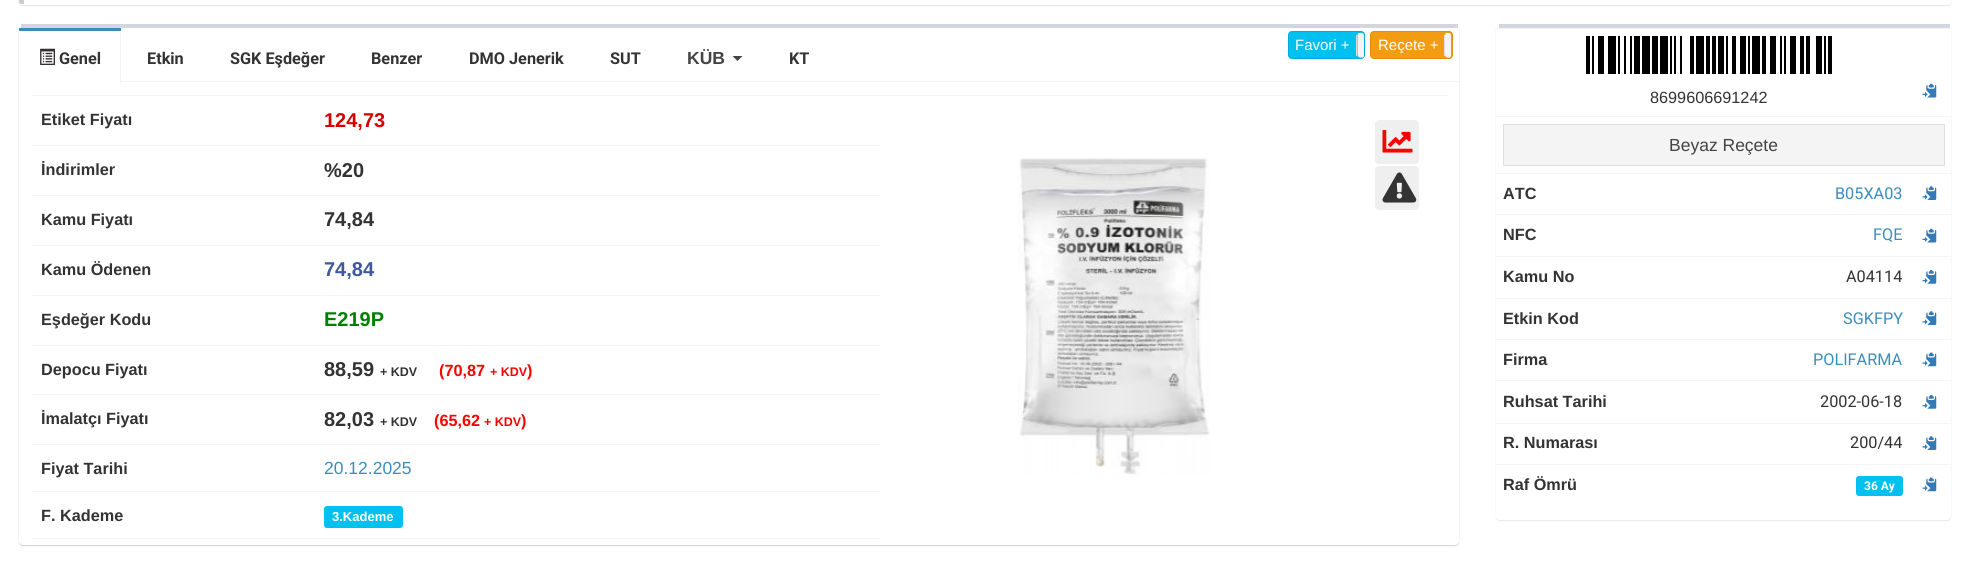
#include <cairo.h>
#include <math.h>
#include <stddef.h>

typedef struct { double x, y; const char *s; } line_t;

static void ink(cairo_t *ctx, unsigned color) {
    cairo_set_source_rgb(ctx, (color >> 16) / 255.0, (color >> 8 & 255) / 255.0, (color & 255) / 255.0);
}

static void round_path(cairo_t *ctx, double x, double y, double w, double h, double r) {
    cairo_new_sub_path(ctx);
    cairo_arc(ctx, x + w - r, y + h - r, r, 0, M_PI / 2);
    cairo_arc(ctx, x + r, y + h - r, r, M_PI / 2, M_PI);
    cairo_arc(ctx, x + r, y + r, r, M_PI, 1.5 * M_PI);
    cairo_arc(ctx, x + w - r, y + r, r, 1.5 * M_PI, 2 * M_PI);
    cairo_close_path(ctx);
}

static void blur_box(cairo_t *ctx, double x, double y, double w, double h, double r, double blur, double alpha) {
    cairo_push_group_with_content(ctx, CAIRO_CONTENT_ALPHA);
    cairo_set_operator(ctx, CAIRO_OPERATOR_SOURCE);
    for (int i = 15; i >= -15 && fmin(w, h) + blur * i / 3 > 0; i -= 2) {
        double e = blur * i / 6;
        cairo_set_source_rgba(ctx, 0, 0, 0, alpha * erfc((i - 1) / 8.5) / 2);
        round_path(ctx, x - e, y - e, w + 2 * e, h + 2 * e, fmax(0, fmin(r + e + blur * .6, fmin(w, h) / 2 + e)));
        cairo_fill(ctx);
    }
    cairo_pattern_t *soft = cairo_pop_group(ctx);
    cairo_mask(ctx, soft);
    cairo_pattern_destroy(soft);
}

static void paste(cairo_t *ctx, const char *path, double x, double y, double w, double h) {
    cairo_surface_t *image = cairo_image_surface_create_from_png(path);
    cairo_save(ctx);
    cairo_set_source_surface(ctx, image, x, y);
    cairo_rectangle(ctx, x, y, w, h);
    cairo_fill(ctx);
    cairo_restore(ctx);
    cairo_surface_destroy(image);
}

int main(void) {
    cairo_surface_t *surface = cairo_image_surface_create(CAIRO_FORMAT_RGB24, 1969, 569);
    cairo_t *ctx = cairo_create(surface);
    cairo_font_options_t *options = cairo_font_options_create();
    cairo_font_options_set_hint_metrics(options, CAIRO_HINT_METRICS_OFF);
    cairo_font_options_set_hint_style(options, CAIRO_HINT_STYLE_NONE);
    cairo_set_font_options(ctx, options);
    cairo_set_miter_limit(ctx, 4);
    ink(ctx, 0xFFFFFF);
    cairo_paint(ctx);
    ink(ctx, 0x000000);
    blur_box(ctx, 19, -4, 1932, 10, 2.5, 0.5, 0.1);
    ink(ctx, 0xFFFFFF);
    round_path(ctx, 19, -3, 1932, 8, 2.5);
    cairo_fill(ctx);
    ink(ctx, 0xCCCCCC);
    cairo_new_path(ctx);
    cairo_move_to(ctx, 21.5, -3);
    cairo_line_to(ctx, 24, -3);
    cairo_line_to(ctx, 24, 4);
    cairo_line_to(ctx, 21.5, 4);
    cairo_curve_to(ctx, 20, 4, 19, 3, 19, 1.5);
    cairo_line_to(ctx, 19, -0.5);
    cairo_curve_to(ctx, 19, -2, 20, -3, 21.5, -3);
    cairo_close_path(ctx);
    cairo_fill(ctx);
    ink(ctx, 0x000000);
    blur_box(ctx, 19, 25, 1440, 521, 4, 0.5, 0.1);
    ink(ctx, 0xFFFFFF);
    round_path(ctx, 19, 24, 1440, 521, 4);
    cairo_fill(ctx);
    ink(ctx, 0xD2D6DE);
    cairo_rectangle(ctx, 21, 24, 1437, 4);
    cairo_fill(ctx);
    ink(ctx, 0x000000);
    blur_box(ctx, 19, 29, 1440, 517, 4, 0.5, 0.1);
    ink(ctx, 0xFFFFFF);
    round_path(ctx, 19, 28, 1440, 517, 4);
    cairo_fill(ctx);
    ink(ctx, 0xF4F4F4);
    cairo_rectangle(ctx, 121, 81, 1338, 1);
    cairo_fill(ctx);
    ink(ctx, 0x00C0EF);
    round_path(ctx, 1288.5, 31.5, 76, 27, 3.5);
    cairo_fill_preserve(ctx);
    ink(ctx, 0x00ACD6);
    cairo_set_line_width(ctx, 1);
    cairo_stroke(ctx);
    ink(ctx, 0x00C0EF);
    round_path(ctx, 1289, 33, 75, 25, 2.5);
    cairo_fill(ctx);
    cairo_select_font_face(ctx, "Liberation Sans", CAIRO_FONT_SLANT_NORMAL, CAIRO_FONT_WEIGHT_NORMAL);
    cairo_set_font_size(ctx, 15);
    ink(ctx, 0xFFFFFF);
    cairo_move_to(ctx, 1295, 50);
    cairo_show_text(ctx, "Favori +");
    ink(ctx, 0xF4F4F4);
    cairo_new_path(ctx);
    cairo_move_to(ctx, 1363, 57.5);
    cairo_line_to(ctx, 1360, 57.5);
    cairo_curve_to(ctx, 1358.5, 57.5, 1357.5, 56, 1357.5, 54);
    cairo_line_to(ctx, 1357.5, 36);
    cairo_curve_to(ctx, 1357.5, 34.5, 1358, 33.5, 1358.5, 33);
    cairo_line_to(ctx, 1361.5, 33);
    cairo_curve_to(ctx, 1363, 33, 1364, 34, 1364, 35.5);
    cairo_line_to(ctx, 1364, 55.5);
    cairo_curve_to(ctx, 1364, 56.5, 1363.5, 57, 1363, 57.5);
    cairo_close_path(ctx);
    cairo_fill(ctx);
    ink(ctx, 0xDDDDDD);
    cairo_rectangle(ctx, 1356, 35, 1, 21);
    cairo_fill(ctx);
    ink(ctx, 0xF39C12);
    round_path(ctx, 1370.5, 31.5, 82, 27, 3.5);
    cairo_fill_preserve(ctx);
    ink(ctx, 0xE08E0B);
    cairo_stroke(ctx);
    ink(ctx, 0xF39C12);
    round_path(ctx, 1371, 33, 80, 25, 2.5);
    cairo_fill(ctx);
    ink(ctx, 0xFFFFFF);
    cairo_move_to(ctx, 1378, 50);
    cairo_show_text(ctx, "Reçete +");
    ink(ctx, 0xF4F4F4);
    cairo_new_path(ctx);
    cairo_move_to(ctx, 1450, 57.5);
    cairo_line_to(ctx, 1447.5, 57.5);
    cairo_curve_to(ctx, 1446, 57.5, 1445, 56, 1445, 54);
    cairo_line_to(ctx, 1445, 36);
    cairo_curve_to(ctx, 1445, 34.5, 1445.5, 33.5, 1446, 33);
    cairo_line_to(ctx, 1448.5, 33);
    cairo_curve_to(ctx, 1450, 33, 1451, 34, 1451, 35.5);
    cairo_line_to(ctx, 1451, 55.5);
    cairo_curve_to(ctx, 1451, 56.5, 1450.5, 57, 1450, 57.5);
    cairo_close_path(ctx);
    cairo_fill(ctx);
    ink(ctx, 0xDDDDDD);
    cairo_rectangle(ctx, 1444, 35, 1, 21);
    cairo_fill(ctx);
    ink(ctx, 0x3C8DBC);
    cairo_rectangle(ctx, 19, 28, 102, 3);
    cairo_fill(ctx);
    ink(ctx, 0xFFFFFF);
    cairo_new_path(ctx);
    cairo_move_to(ctx, 19, 83);
    cairo_line_to(ctx, 1459, 83);
    cairo_line_to(ctx, 1459, 541);
    cairo_curve_to(ctx, 1459, 543, 1457, 545, 1455, 545);
    cairo_line_to(ctx, 23, 545);
    cairo_curve_to(ctx, 21, 545, 19, 543, 19, 541);
    cairo_close_path(ctx);
    cairo_fill(ctx);
    ink(ctx, 0xF4F4F4);
    cairo_new_path(ctx);
    cairo_move_to(ctx, 121, 31);
    cairo_line_to(ctx, 121, 84);
    cairo_line_to(ctx, 120, 82);
    cairo_line_to(ctx, 120, 32);
    cairo_close_path(ctx);
    cairo_fill(ctx);
    paste(ctx, "media/1.png", 40, 48, 15, 17);
    cairo_select_font_face(ctx, "Roboto", CAIRO_FONT_SLANT_NORMAL, CAIRO_FONT_WEIGHT_BOLD);
    cairo_set_font_size(ctx, 16.25);
    ink(ctx, 0x333333);
    {
        static const line_t items[] = {
            {59, 64, "Genel"},
            {147, 64, "Etkin"},
            {230, 64, "SGK Eşdeğer"},
            {371, 64, "Benzer"},
            {469, 64, "DMO Jenerik"},
            {610, 64, "SUT"},
        };
        for (size_t i = 0; i < sizeof items / sizeof *items; i++) {
            cairo_move_to(ctx, items[i].x, items[i].y);
            cairo_show_text(ctx, items[i].s);
        }
    }
    cairo_select_font_face(ctx, "Liberation Sans", CAIRO_FONT_SLANT_NORMAL, CAIRO_FONT_WEIGHT_BOLD);
    cairo_set_font_size(ctx, 17.5);
    ink(ctx, 0x444444);
    cairo_move_to(ctx, 687, 64);
    cairo_show_text(ctx, "KÜB");
    cairo_new_path(ctx);
    cairo_move_to(ctx, 732.5, 56);
    cairo_line_to(ctx, 742.5, 56);
    cairo_line_to(ctx, 737.5, 61);
    cairo_close_path(ctx);
    cairo_fill(ctx);
    cairo_select_font_face(ctx, "Roboto", CAIRO_FONT_SLANT_NORMAL, CAIRO_FONT_WEIGHT_BOLD);
    cairo_set_font_size(ctx, 16.25);
    ink(ctx, 0x333333);
    cairo_move_to(ctx, 789, 64);
    cairo_show_text(ctx, "KT");
    ink(ctx, 0xF4F4F4);
    cairo_rectangle(ctx, 31, 95, 1417, 1);
    cairo_fill(ctx);
    ink(ctx, 0xEFEFEF);
    round_path(ctx, 1375, 120, 44, 44, 4);
    cairo_fill(ctx);
    paste(ctx, "media/2.png", 1382, 130, 31, 23);
    round_path(ctx, 1375, 166, 44, 44, 4);
    cairo_fill(ctx);
    paste(ctx, "media/3.png", 1382, 172, 35, 31);
    cairo_select_font_face(ctx, "Liberation Sans", CAIRO_FONT_SLANT_NORMAL, CAIRO_FONT_WEIGHT_BOLD);
    ink(ctx, 0x333333);
    cairo_move_to(ctx, 41, 125);
    cairo_show_text(ctx, "Etiket Fiyatı");
    cairo_set_font_size(ctx, 20);
    ink(ctx, 0xD50000);
    cairo_move_to(ctx, 324, 127);
    cairo_show_text(ctx, "124,73");
    paste(ctx, "media/4.png", 1018, 158, 192, 317);
    cairo_set_font_size(ctx, 16.25);
    ink(ctx, 0x333333);
    cairo_move_to(ctx, 41, 175);
    cairo_show_text(ctx, "İndirimler");
    ink(ctx, 0xF4F4F4);
    cairo_rectangle(ctx, 31, 145, 850, 1);
    cairo_fill(ctx);
    cairo_set_font_size(ctx, 20);
    ink(ctx, 0x333333);
    cairo_move_to(ctx, 324, 177);
    cairo_show_text(ctx, "%20");
    cairo_set_font_size(ctx, 16.25);
    cairo_move_to(ctx, 41, 225);
    cairo_show_text(ctx, "Kamu Fiyatı");
    ink(ctx, 0xF4F4F4);
    cairo_rectangle(ctx, 31, 195, 850, 1);
    cairo_fill(ctx);
    cairo_set_font_size(ctx, 20);
    ink(ctx, 0x333333);
    cairo_move_to(ctx, 324, 226);
    cairo_show_text(ctx, "74,84");
    cairo_set_font_size(ctx, 16.25);
    cairo_move_to(ctx, 41, 275);
    cairo_show_text(ctx, "Kamu Ödenen");
    ink(ctx, 0xF4F4F4);
    cairo_rectangle(ctx, 31, 245, 850, 1);
    cairo_fill(ctx);
    cairo_set_font_size(ctx, 20);
    ink(ctx, 0x3E58A0);
    cairo_move_to(ctx, 324, 276);
    cairo_show_text(ctx, "74,84");
    cairo_set_font_size(ctx, 16.25);
    ink(ctx, 0x333333);
    cairo_move_to(ctx, 41, 325);
    cairo_show_text(ctx, "Eşdeğer Kodu");
    ink(ctx, 0xF4F4F4);
    cairo_rectangle(ctx, 31, 295, 850, 1);
    cairo_fill(ctx);
    cairo_set_font_size(ctx, 20);
    ink(ctx, 0x008000);
    cairo_move_to(ctx, 324, 326);
    cairo_show_text(ctx, "E219P");
    cairo_set_font_size(ctx, 16.25);
    ink(ctx, 0x333333);
    cairo_move_to(ctx, 41, 375);
    cairo_show_text(ctx, "Depocu Fiyatı");
    ink(ctx, 0xF4F4F4);
    cairo_rectangle(ctx, 31, 345, 850, 1);
    cairo_fill(ctx);
    cairo_set_font_size(ctx, 20);
    ink(ctx, 0x333333);
    cairo_move_to(ctx, 324, 376);
    cairo_show_text(ctx, "88,59");
    cairo_set_font_size(ctx, 12.5);
    cairo_move_to(ctx, 380, 376);
    cairo_show_text(ctx, "+ KDV");
    cairo_set_font_size(ctx, 16.25);
    ink(ctx, 0xFF0000);
    cairo_move_to(ctx, 439, 376);
    cairo_show_text(ctx, "(70,87");
    cairo_set_font_size(ctx, 12.5);
    cairo_move_to(ctx, 490, 376);
    cairo_show_text(ctx, "+ KDV");
    cairo_set_font_size(ctx, 16.25);
    cairo_move_to(ctx, 527, 376);
    cairo_show_text(ctx, ")");
    ink(ctx, 0x333333);
    cairo_move_to(ctx, 41, 424);
    cairo_show_text(ctx, "İmalatçı Fiyatı");
    ink(ctx, 0xF4F4F4);
    cairo_rectangle(ctx, 31, 394, 850, 1);
    cairo_fill(ctx);
    cairo_set_font_size(ctx, 20);
    ink(ctx, 0x333333);
    cairo_move_to(ctx, 324, 426);
    cairo_show_text(ctx, "82,03");
    cairo_set_font_size(ctx, 12.5);
    cairo_move_to(ctx, 380, 426);
    cairo_show_text(ctx, "+ KDV");
    cairo_set_font_size(ctx, 16.25);
    ink(ctx, 0xFF0000);
    cairo_move_to(ctx, 434, 426);
    cairo_show_text(ctx, "(65,62");
    cairo_set_font_size(ctx, 12.5);
    cairo_move_to(ctx, 484, 426);
    cairo_show_text(ctx, "+ KDV");
    cairo_set_font_size(ctx, 16.25);
    cairo_move_to(ctx, 521, 426);
    cairo_show_text(ctx, ")");
    ink(ctx, 0x333333);
    cairo_move_to(ctx, 41, 474);
    cairo_show_text(ctx, "Fiyat Tarihi");
    ink(ctx, 0xF4F4F4);
    cairo_rectangle(ctx, 31, 444, 850, 1);
    cairo_fill(ctx);
    cairo_select_font_face(ctx, "Liberation Sans", CAIRO_FONT_SLANT_NORMAL, CAIRO_FONT_WEIGHT_NORMAL);
    cairo_set_font_size(ctx, 17.5);
    ink(ctx, 0x3C8DBC);
    cairo_move_to(ctx, 324, 474);
    cairo_show_text(ctx, "20.12.2025");
    cairo_select_font_face(ctx, "Liberation Sans", CAIRO_FONT_SLANT_NORMAL, CAIRO_FONT_WEIGHT_BOLD);
    cairo_set_font_size(ctx, 16.25);
    ink(ctx, 0x333333);
    cairo_move_to(ctx, 41, 521);
    cairo_show_text(ctx, "F. Kademe");
    ink(ctx, 0xF4F4F4);
    cairo_rectangle(ctx, 31, 491, 850, 1);
    cairo_fill(ctx);
    ink(ctx, 0x00C0EF);
    round_path(ctx, 324, 506, 79, 22, 3);
    cairo_fill(ctx);
    cairo_set_font_size(ctx, 13);
    ink(ctx, 0xFFFFFF);
    cairo_move_to(ctx, 332, 521);
    cairo_show_text(ctx, "3.Kademe");
    ink(ctx, 0xF4F4F4);
    cairo_rectangle(ctx, 31, 538, 850, 1);
    cairo_fill(ctx);
    ink(ctx, 0x000000);
    blur_box(ctx, 1496, 25, 455, 496, 4, 0.5, 0.1);
    ink(ctx, 0xFFFFFF);
    round_path(ctx, 1496, 24, 455, 496, 4);
    cairo_fill(ctx);
    ink(ctx, 0xD2D6DE);
    cairo_rectangle(ctx, 1499, 24, 451, 4);
    cairo_fill(ctx);
    ink(ctx, 0xF4F4F4);
    cairo_rectangle(ctx, 1496, 28, 455, 1);
    cairo_fill(ctx);
    paste(ctx, "media/5.png", 1586, 36, 246, 38);
    cairo_select_font_face(ctx, "Liberation Sans", CAIRO_FONT_SLANT_NORMAL, CAIRO_FONT_WEIGHT_NORMAL);
    cairo_set_font_size(ctx, 16.25);
    ink(ctx, 0x333333);
    cairo_move_to(ctx, 1650, 103);
    cairo_show_text(ctx, "8699606691242");
    paste(ctx, "media/6.png", 1922, 83, 15, 15);
    ink(ctx, 0xF4F4F4);
    cairo_rectangle(ctx, 1496, 116, 455, 1);
    cairo_fill(ctx);
    round_path(ctx, 1503.5, 124.5, 441, 41, 0.5);
    cairo_fill_preserve(ctx);
    ink(ctx, 0xDDDDDD);
    cairo_stroke(ctx);
    cairo_set_font_size(ctx, 17.5);
    ink(ctx, 0x444444);
    cairo_move_to(ctx, 1669, 151);
    cairo_show_text(ctx, "Beyaz Reçete");
    ink(ctx, 0xF4F4F4);
    cairo_rectangle(ctx, 1496, 173, 455, 1);
    cairo_fill(ctx);
    paste(ctx, "media/7.png", 1922, 186, 15, 14);
    cairo_select_font_face(ctx, "Liberation Sans", CAIRO_FONT_SLANT_NORMAL, CAIRO_FONT_WEIGHT_BOLD);
    cairo_set_font_size(ctx, 16.25);
    ink(ctx, 0x333333);
    cairo_move_to(ctx, 1503, 199);
    cairo_show_text(ctx, "ATC");
    cairo_select_font_face(ctx, "Roboto", CAIRO_FONT_SLANT_NORMAL, CAIRO_FONT_WEIGHT_NORMAL);
    ink(ctx, 0x3C8DBC);
    cairo_move_to(ctx, 1835, 199);
    cairo_show_text(ctx, "B05XA03");
    ink(ctx, 0xF4F4F4);
    cairo_rectangle(ctx, 1496, 214, 455, 1);
    cairo_fill(ctx);
    paste(ctx, "media/6.png", 1922, 228, 15, 15);
    cairo_select_font_face(ctx, "Liberation Sans", CAIRO_FONT_SLANT_NORMAL, CAIRO_FONT_WEIGHT_BOLD);
    ink(ctx, 0x333333);
    cairo_move_to(ctx, 1503, 240);
    cairo_show_text(ctx, "NFC");
    cairo_select_font_face(ctx, "Roboto", CAIRO_FONT_SLANT_NORMAL, CAIRO_FONT_WEIGHT_NORMAL);
    ink(ctx, 0x3C8DBC);
    cairo_move_to(ctx, 1873, 240);
    cairo_show_text(ctx, "FQE");
    ink(ctx, 0xF4F4F4);
    cairo_rectangle(ctx, 1496, 256, 455, 1);
    cairo_fill(ctx);
    paste(ctx, "media/8.png", 1922, 270, 15, 14);
    cairo_select_font_face(ctx, "Liberation Sans", CAIRO_FONT_SLANT_NORMAL, CAIRO_FONT_WEIGHT_BOLD);
    ink(ctx, 0x333333);
    cairo_move_to(ctx, 1503, 282);
    cairo_show_text(ctx, "Kamu No");
    cairo_select_font_face(ctx, "Roboto", CAIRO_FONT_SLANT_NORMAL, CAIRO_FONT_WEIGHT_NORMAL);
    cairo_move_to(ctx, 1846, 282);
    cairo_show_text(ctx, "A04114");
    ink(ctx, 0xF4F4F4);
    cairo_rectangle(ctx, 1496, 298, 455, 1);
    cairo_fill(ctx);
    paste(ctx, "media/7.png", 1922, 311, 15, 14);
    cairo_select_font_face(ctx, "Liberation Sans", CAIRO_FONT_SLANT_NORMAL, CAIRO_FONT_WEIGHT_BOLD);
    ink(ctx, 0x333333);
    cairo_move_to(ctx, 1503, 324);
    cairo_show_text(ctx, "Etkin Kod");
    cairo_select_font_face(ctx, "Roboto", CAIRO_FONT_SLANT_NORMAL, CAIRO_FONT_WEIGHT_NORMAL);
    ink(ctx, 0x3C8DBC);
    cairo_move_to(ctx, 1843, 324);
    cairo_show_text(ctx, "SGKFPY");
    ink(ctx, 0xF4F4F4);
    cairo_rectangle(ctx, 1496, 339, 455, 1);
    cairo_fill(ctx);
    paste(ctx, "media/9.png", 1922, 352, 15, 15);
    cairo_select_font_face(ctx, "Liberation Sans", CAIRO_FONT_SLANT_NORMAL, CAIRO_FONT_WEIGHT_BOLD);
    ink(ctx, 0x333333);
    cairo_move_to(ctx, 1503, 365);
    cairo_show_text(ctx, "Firma");
    cairo_select_font_face(ctx, "Roboto", CAIRO_FONT_SLANT_NORMAL, CAIRO_FONT_WEIGHT_NORMAL);
    ink(ctx, 0x3C8DBC);
    cairo_move_to(ctx, 1813, 365);
    cairo_show_text(ctx, "POLIFARMA");
    ink(ctx, 0xF4F4F4);
    cairo_rectangle(ctx, 1496, 380, 455, 1);
    cairo_fill(ctx);
    paste(ctx, "media/8.png", 1922, 395, 15, 14);
    cairo_select_font_face(ctx, "Liberation Sans", CAIRO_FONT_SLANT_NORMAL, CAIRO_FONT_WEIGHT_BOLD);
    ink(ctx, 0x333333);
    cairo_move_to(ctx, 1503, 407);
    cairo_show_text(ctx, "Ruhsat Tarihi");
    cairo_select_font_face(ctx, "Roboto", CAIRO_FONT_SLANT_NORMAL, CAIRO_FONT_WEIGHT_NORMAL);
    cairo_move_to(ctx, 1820, 407);
    cairo_show_text(ctx, "2002-06-18");
    ink(ctx, 0xF4F4F4);
    cairo_rectangle(ctx, 1496, 423, 455, 1);
    cairo_fill(ctx);
    paste(ctx, "media/7.png", 1922, 436, 15, 14);
    cairo_select_font_face(ctx, "Liberation Sans", CAIRO_FONT_SLANT_NORMAL, CAIRO_FONT_WEIGHT_BOLD);
    ink(ctx, 0x333333);
    cairo_move_to(ctx, 1503, 448);
    cairo_show_text(ctx, "R. Numarası");
    cairo_select_font_face(ctx, "Roboto", CAIRO_FONT_SLANT_NORMAL, CAIRO_FONT_WEIGHT_NORMAL);
    cairo_move_to(ctx, 1850, 448);
    cairo_show_text(ctx, "200/44");
    ink(ctx, 0xF4F4F4);
    cairo_rectangle(ctx, 1496, 464, 455, 1);
    cairo_fill(ctx);
    paste(ctx, "media/9.png", 1922, 477, 15, 15);
    cairo_select_font_face(ctx, "Liberation Sans", CAIRO_FONT_SLANT_NORMAL, CAIRO_FONT_WEIGHT_BOLD);
    ink(ctx, 0x333333);
    cairo_move_to(ctx, 1503, 490);
    cairo_show_text(ctx, "Raf Ömrü");
    ink(ctx, 0x00C0EF);
    round_path(ctx, 1856, 476, 47, 20, 3);
    cairo_fill(ctx);
    cairo_select_font_face(ctx, "Roboto", CAIRO_FONT_SLANT_NORMAL, CAIRO_FONT_WEIGHT_BOLD);
    cairo_set_font_size(ctx, 12);
    ink(ctx, 0xFFFFFF);
    cairo_move_to(ctx, 1864, 490);
    cairo_show_text(ctx, "36 Ay");
    cairo_surface_write_to_png(surface, "image.png");
    cairo_font_options_destroy(options);
    cairo_destroy(ctx);
    cairo_surface_destroy(surface);
    return 0;
}
